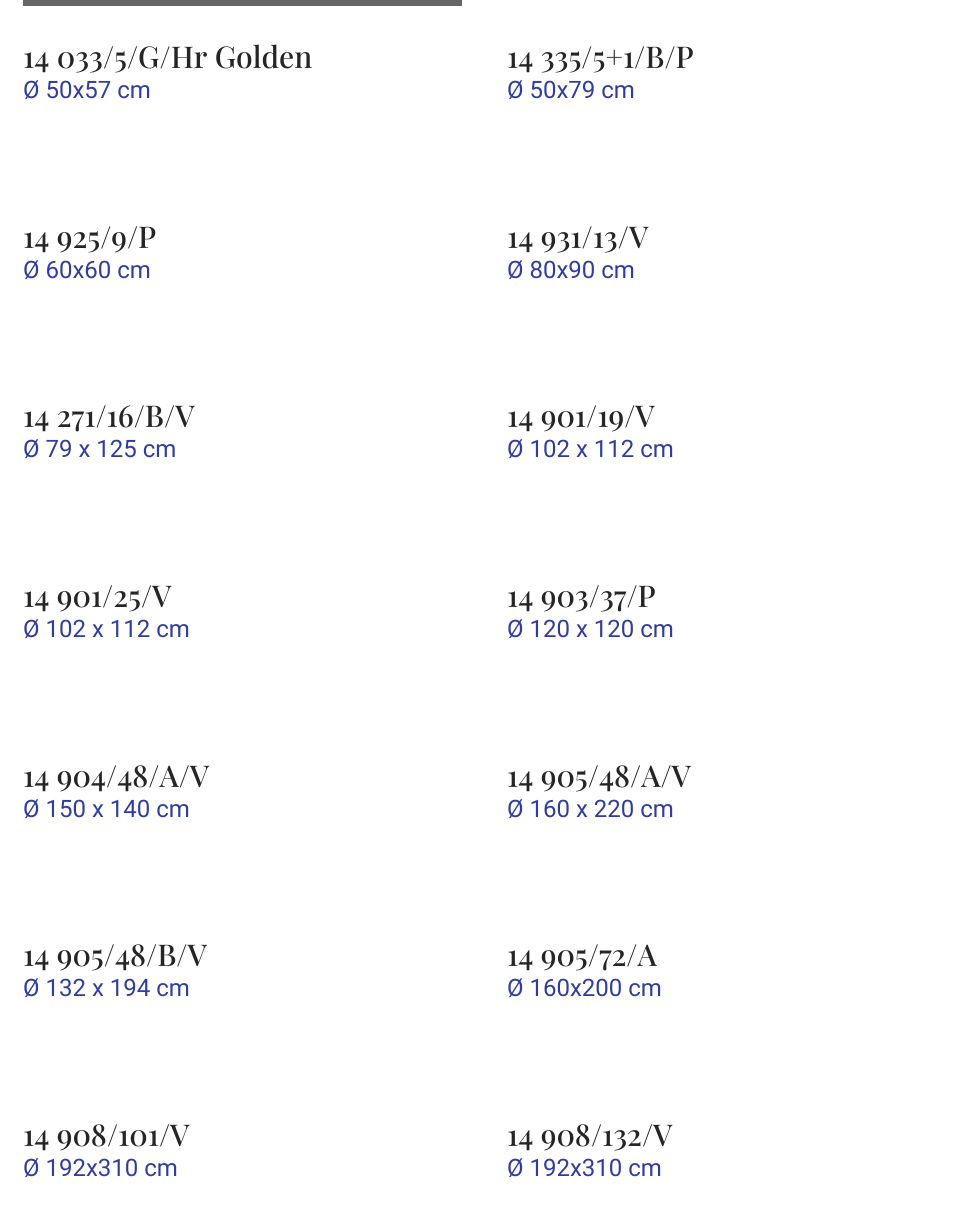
#include <cairo.h>
#include <math.h>
#include <stddef.h>


static void ink(cairo_t *ctx, unsigned color) {
    cairo_set_source_rgb(ctx, (color >> 16) / 255.0, (color >> 8 & 255) / 255.0, (color & 255) / 255.0);
}

int main(void) {
    cairo_surface_t *surface = cairo_image_surface_create(CAIRO_FORMAT_RGB24, 969, 1223);
    cairo_t *ctx = cairo_create(surface);
    cairo_font_options_t *options = cairo_font_options_create();
    cairo_font_options_set_hint_metrics(options, CAIRO_HINT_METRICS_OFF);
    cairo_font_options_set_hint_style(options, CAIRO_HINT_STYLE_NONE);
    cairo_set_font_options(ctx, options);
    cairo_set_miter_limit(ctx, 4);
    ink(ctx, 0xFFFFFF);
    cairo_paint(ctx);
    ink(ctx, 0x666666);
    cairo_rectangle(ctx, 23, 0, 439, 6);
    cairo_fill(ctx);
    cairo_select_font_face(ctx, "Playfair Display Medium", CAIRO_FONT_SLANT_NORMAL, CAIRO_FONT_WEIGHT_NORMAL);
    cairo_set_font_size(ctx, 30);
    ink(ctx, 0x252525);
    cairo_move_to(ctx, 23, 68);
    cairo_show_text(ctx, "14 033/5/G/Hr Golden");
    cairo_select_font_face(ctx, "Roboto", CAIRO_FONT_SLANT_NORMAL, CAIRO_FONT_WEIGHT_NORMAL);
    cairo_set_font_size(ctx, 24);
    ink(ctx, 0x2F3D9F);
    cairo_move_to(ctx, 23, 98);
    cairo_show_text(ctx, "Ø 50x57 cm");
    cairo_select_font_face(ctx, "Playfair Display Medium", CAIRO_FONT_SLANT_NORMAL, CAIRO_FONT_WEIGHT_NORMAL);
    cairo_set_font_size(ctx, 30);
    ink(ctx, 0x252525);
    cairo_move_to(ctx, 507, 68);
    cairo_show_text(ctx, "14 335/5+1/B/P");
    cairo_select_font_face(ctx, "Roboto", CAIRO_FONT_SLANT_NORMAL, CAIRO_FONT_WEIGHT_NORMAL);
    cairo_set_font_size(ctx, 24);
    ink(ctx, 0x2F3D9F);
    cairo_move_to(ctx, 507, 98);
    cairo_show_text(ctx, "Ø 50x79 cm");
    cairo_select_font_face(ctx, "Playfair Display Medium", CAIRO_FONT_SLANT_NORMAL, CAIRO_FONT_WEIGHT_NORMAL);
    cairo_set_font_size(ctx, 30);
    ink(ctx, 0x252525);
    cairo_move_to(ctx, 23, 248);
    cairo_show_text(ctx, "14 925/9/P");
    cairo_select_font_face(ctx, "Roboto", CAIRO_FONT_SLANT_NORMAL, CAIRO_FONT_WEIGHT_NORMAL);
    cairo_set_font_size(ctx, 24);
    ink(ctx, 0x2F3D9F);
    cairo_move_to(ctx, 23, 278);
    cairo_show_text(ctx, "Ø 60x60 cm");
    cairo_select_font_face(ctx, "Playfair Display Medium", CAIRO_FONT_SLANT_NORMAL, CAIRO_FONT_WEIGHT_NORMAL);
    cairo_set_font_size(ctx, 30);
    ink(ctx, 0x252525);
    cairo_move_to(ctx, 507, 248);
    cairo_show_text(ctx, "14 931/13/V");
    cairo_select_font_face(ctx, "Roboto", CAIRO_FONT_SLANT_NORMAL, CAIRO_FONT_WEIGHT_NORMAL);
    cairo_set_font_size(ctx, 24);
    ink(ctx, 0x2F3D9F);
    cairo_move_to(ctx, 507, 278);
    cairo_show_text(ctx, "Ø 80x90 cm");
    cairo_select_font_face(ctx, "Playfair Display Medium", CAIRO_FONT_SLANT_NORMAL, CAIRO_FONT_WEIGHT_NORMAL);
    cairo_set_font_size(ctx, 30);
    ink(ctx, 0x252525);
    cairo_move_to(ctx, 23, 427);
    cairo_show_text(ctx, "14 271/16/B/V");
    cairo_select_font_face(ctx, "Roboto", CAIRO_FONT_SLANT_NORMAL, CAIRO_FONT_WEIGHT_NORMAL);
    cairo_set_font_size(ctx, 24);
    ink(ctx, 0x2F3D9F);
    cairo_move_to(ctx, 23, 457);
    cairo_show_text(ctx, "Ø 79 x 125 cm");
    cairo_select_font_face(ctx, "Playfair Display Medium", CAIRO_FONT_SLANT_NORMAL, CAIRO_FONT_WEIGHT_NORMAL);
    cairo_set_font_size(ctx, 30);
    ink(ctx, 0x252525);
    cairo_move_to(ctx, 507, 427);
    cairo_show_text(ctx, "14 901/19/V");
    cairo_select_font_face(ctx, "Roboto", CAIRO_FONT_SLANT_NORMAL, CAIRO_FONT_WEIGHT_NORMAL);
    cairo_set_font_size(ctx, 24);
    ink(ctx, 0x2F3D9F);
    cairo_move_to(ctx, 507, 457);
    cairo_show_text(ctx, "Ø 102 x 112 cm");
    cairo_select_font_face(ctx, "Playfair Display Medium", CAIRO_FONT_SLANT_NORMAL, CAIRO_FONT_WEIGHT_NORMAL);
    cairo_set_font_size(ctx, 30);
    ink(ctx, 0x252525);
    cairo_move_to(ctx, 23, 607);
    cairo_show_text(ctx, "14 901/25/V");
    cairo_select_font_face(ctx, "Roboto", CAIRO_FONT_SLANT_NORMAL, CAIRO_FONT_WEIGHT_NORMAL);
    cairo_set_font_size(ctx, 24);
    ink(ctx, 0x2F3D9F);
    cairo_move_to(ctx, 23, 637);
    cairo_show_text(ctx, "Ø 102 x 112 cm");
    cairo_select_font_face(ctx, "Playfair Display Medium", CAIRO_FONT_SLANT_NORMAL, CAIRO_FONT_WEIGHT_NORMAL);
    cairo_set_font_size(ctx, 30);
    ink(ctx, 0x252525);
    cairo_move_to(ctx, 507, 607);
    cairo_show_text(ctx, "14 903/37/P");
    cairo_select_font_face(ctx, "Roboto", CAIRO_FONT_SLANT_NORMAL, CAIRO_FONT_WEIGHT_NORMAL);
    cairo_set_font_size(ctx, 24);
    ink(ctx, 0x2F3D9F);
    cairo_move_to(ctx, 507, 637);
    cairo_show_text(ctx, "Ø 120 x 120 cm");
    cairo_select_font_face(ctx, "Playfair Display Medium", CAIRO_FONT_SLANT_NORMAL, CAIRO_FONT_WEIGHT_NORMAL);
    cairo_set_font_size(ctx, 30);
    ink(ctx, 0x252525);
    cairo_move_to(ctx, 23, 787);
    cairo_show_text(ctx, "14 904/48/A/V");
    cairo_select_font_face(ctx, "Roboto", CAIRO_FONT_SLANT_NORMAL, CAIRO_FONT_WEIGHT_NORMAL);
    cairo_set_font_size(ctx, 24);
    ink(ctx, 0x2F3D9F);
    cairo_move_to(ctx, 23, 817);
    cairo_show_text(ctx, "Ø 150 x 140 cm");
    cairo_select_font_face(ctx, "Playfair Display Medium", CAIRO_FONT_SLANT_NORMAL, CAIRO_FONT_WEIGHT_NORMAL);
    cairo_set_font_size(ctx, 30);
    ink(ctx, 0x252525);
    cairo_move_to(ctx, 507, 787);
    cairo_show_text(ctx, "14 905/48/A/V");
    cairo_select_font_face(ctx, "Roboto", CAIRO_FONT_SLANT_NORMAL, CAIRO_FONT_WEIGHT_NORMAL);
    cairo_set_font_size(ctx, 24);
    ink(ctx, 0x2F3D9F);
    cairo_move_to(ctx, 507, 817);
    cairo_show_text(ctx, "Ø 160 x 220 cm");
    cairo_select_font_face(ctx, "Playfair Display Medium", CAIRO_FONT_SLANT_NORMAL, CAIRO_FONT_WEIGHT_NORMAL);
    cairo_set_font_size(ctx, 30);
    ink(ctx, 0x252525);
    cairo_move_to(ctx, 23, 966);
    cairo_show_text(ctx, "14 905/48/B/V");
    cairo_select_font_face(ctx, "Roboto", CAIRO_FONT_SLANT_NORMAL, CAIRO_FONT_WEIGHT_NORMAL);
    cairo_set_font_size(ctx, 24);
    ink(ctx, 0x2F3D9F);
    cairo_move_to(ctx, 23, 996);
    cairo_show_text(ctx, "Ø 132 x 194 cm");
    cairo_select_font_face(ctx, "Playfair Display Medium", CAIRO_FONT_SLANT_NORMAL, CAIRO_FONT_WEIGHT_NORMAL);
    cairo_set_font_size(ctx, 30);
    ink(ctx, 0x252525);
    cairo_move_to(ctx, 507, 966);
    cairo_show_text(ctx, "14 905/72/A");
    cairo_select_font_face(ctx, "Roboto", CAIRO_FONT_SLANT_NORMAL, CAIRO_FONT_WEIGHT_NORMAL);
    cairo_set_font_size(ctx, 24);
    ink(ctx, 0x2F3D9F);
    cairo_move_to(ctx, 507, 996);
    cairo_show_text(ctx, "Ø 160x200 cm");
    cairo_select_font_face(ctx, "Playfair Display Medium", CAIRO_FONT_SLANT_NORMAL, CAIRO_FONT_WEIGHT_NORMAL);
    cairo_set_font_size(ctx, 30);
    ink(ctx, 0x252525);
    cairo_move_to(ctx, 23, 1146);
    cairo_show_text(ctx, "14 908/101/V");
    cairo_select_font_face(ctx, "Roboto", CAIRO_FONT_SLANT_NORMAL, CAIRO_FONT_WEIGHT_NORMAL);
    cairo_set_font_size(ctx, 24);
    ink(ctx, 0x2F3D9F);
    cairo_move_to(ctx, 23, 1176);
    cairo_show_text(ctx, "Ø 192x310 cm");
    cairo_select_font_face(ctx, "Playfair Display Medium", CAIRO_FONT_SLANT_NORMAL, CAIRO_FONT_WEIGHT_NORMAL);
    cairo_set_font_size(ctx, 30);
    ink(ctx, 0x252525);
    cairo_move_to(ctx, 507, 1146);
    cairo_show_text(ctx, "14 908/132/V");
    cairo_select_font_face(ctx, "Roboto", CAIRO_FONT_SLANT_NORMAL, CAIRO_FONT_WEIGHT_NORMAL);
    cairo_set_font_size(ctx, 24);
    ink(ctx, 0x2F3D9F);
    cairo_move_to(ctx, 507, 1176);
    cairo_show_text(ctx, "Ø 192x310 cm");
    cairo_surface_write_to_png(surface, "image.png");
    cairo_font_options_destroy(options);
    cairo_destroy(ctx);
    cairo_surface_destroy(surface);
    return 0;
}
